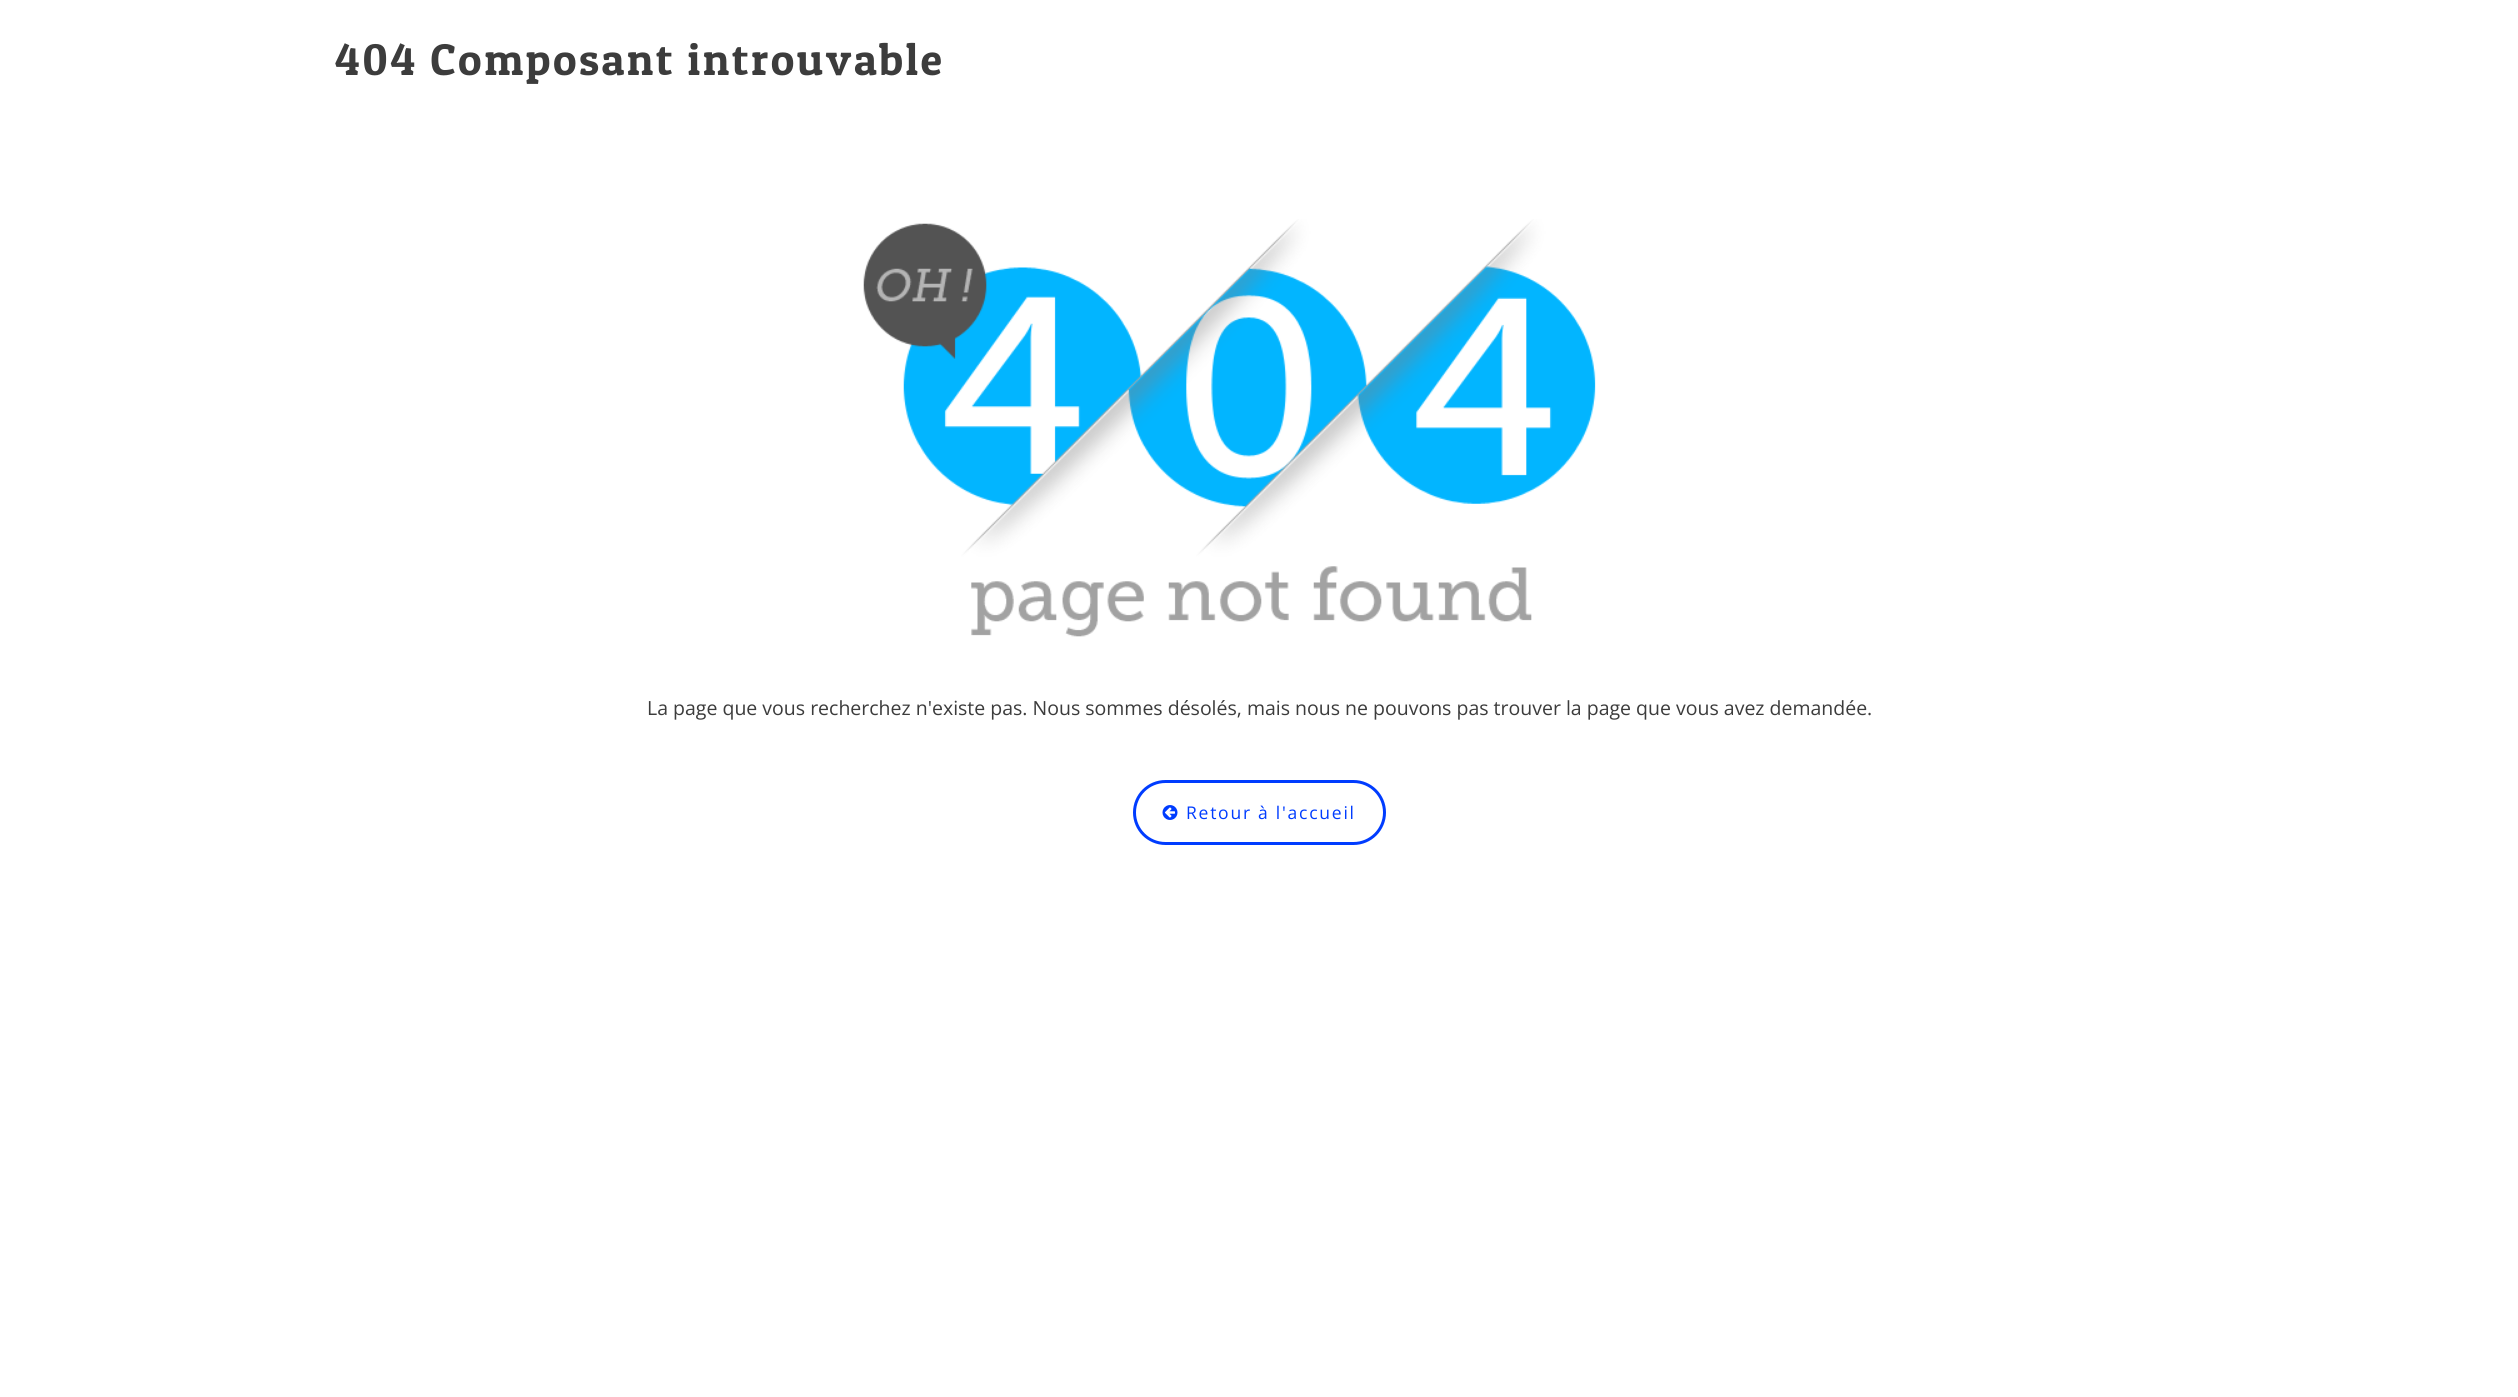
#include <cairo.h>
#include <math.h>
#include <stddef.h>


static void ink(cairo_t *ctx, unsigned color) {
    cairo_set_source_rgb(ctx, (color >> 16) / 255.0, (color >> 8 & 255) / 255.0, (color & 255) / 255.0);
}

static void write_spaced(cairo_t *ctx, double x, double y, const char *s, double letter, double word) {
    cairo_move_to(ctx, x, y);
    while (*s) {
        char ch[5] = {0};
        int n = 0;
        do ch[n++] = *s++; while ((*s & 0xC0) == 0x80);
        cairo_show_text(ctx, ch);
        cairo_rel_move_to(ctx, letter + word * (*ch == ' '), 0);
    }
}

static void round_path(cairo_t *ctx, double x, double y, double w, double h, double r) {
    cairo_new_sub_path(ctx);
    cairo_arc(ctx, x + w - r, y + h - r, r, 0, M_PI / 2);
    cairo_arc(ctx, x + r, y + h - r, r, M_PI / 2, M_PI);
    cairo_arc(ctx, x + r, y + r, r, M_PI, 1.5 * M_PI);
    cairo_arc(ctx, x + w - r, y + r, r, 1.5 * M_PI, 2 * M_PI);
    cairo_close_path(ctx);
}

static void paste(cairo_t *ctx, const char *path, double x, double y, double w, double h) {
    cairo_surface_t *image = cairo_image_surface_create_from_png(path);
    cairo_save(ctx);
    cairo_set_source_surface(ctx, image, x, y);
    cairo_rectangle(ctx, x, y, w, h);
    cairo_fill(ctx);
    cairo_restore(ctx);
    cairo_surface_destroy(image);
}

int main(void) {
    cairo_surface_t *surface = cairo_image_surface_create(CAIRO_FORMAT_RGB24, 2518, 1397);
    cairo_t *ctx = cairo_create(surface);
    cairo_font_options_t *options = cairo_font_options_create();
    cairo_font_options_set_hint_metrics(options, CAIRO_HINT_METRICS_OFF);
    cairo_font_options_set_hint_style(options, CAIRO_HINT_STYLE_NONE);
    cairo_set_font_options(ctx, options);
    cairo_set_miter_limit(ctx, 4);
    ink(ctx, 0xFFFFFF);
    cairo_paint(ctx);
    cairo_select_font_face(ctx, "Patua One", CAIRO_FONT_SLANT_NORMAL, CAIRO_FONT_WEIGHT_NORMAL);
    cairo_set_font_size(ctx, 44.5);
    ink(ctx, 0x3C3C3C);
    write_spaced(ctx, 335, 75, "404 Composant introuvable", 2.5, 0);
    paste(ctx, "media/1.png", 863, 219, 733, 418);
    cairo_select_font_face(ctx, "Open Sans", CAIRO_FONT_SLANT_NORMAL, CAIRO_FONT_WEIGHT_NORMAL);
    cairo_set_font_size(ctx, 19.5);
    cairo_move_to(ctx, 647, 715);
    cairo_show_text(ctx, "La page que vous recherchez n'existe pas. Nous sommes désolés, mais nous ne pouvons pas trouver la page que vous avez demandée.");
    round_path(ctx, 1134.5, 781.5, 250, 62, 31);
    ink(ctx, 0x003CFF);
    cairo_set_line_width(ctx, 3);
    cairo_stroke(ctx);
    paste(ctx, "media/2.png", 1162, 805, 16, 15);
    cairo_set_font_size(ctx, 17.5);
    write_spaced(ctx, 1186, 819, "Retour à l'accueil", 1.75, 0);
    cairo_surface_write_to_png(surface, "image.png");
    cairo_font_options_destroy(options);
    cairo_destroy(ctx);
    cairo_surface_destroy(surface);
    return 0;
}
